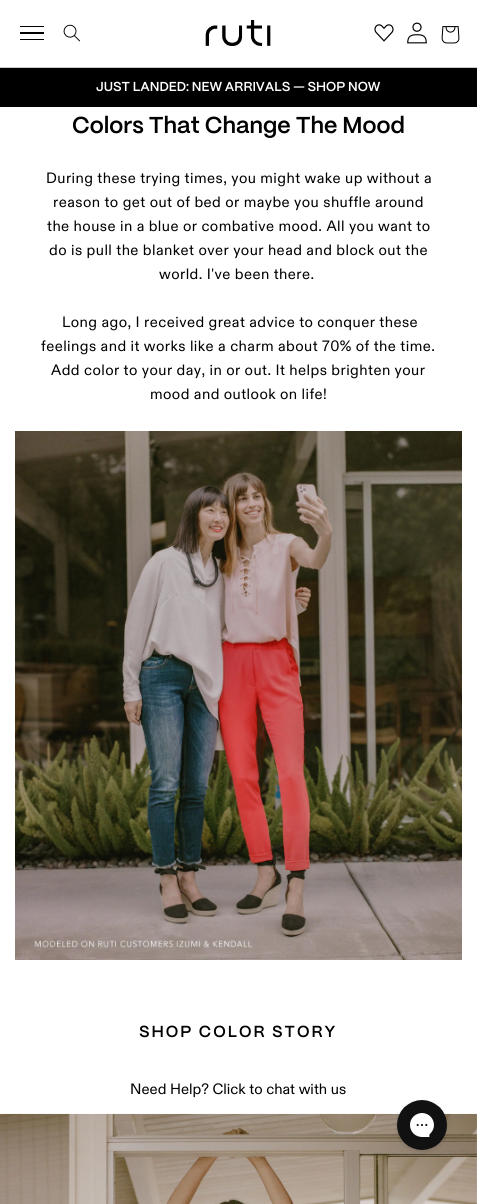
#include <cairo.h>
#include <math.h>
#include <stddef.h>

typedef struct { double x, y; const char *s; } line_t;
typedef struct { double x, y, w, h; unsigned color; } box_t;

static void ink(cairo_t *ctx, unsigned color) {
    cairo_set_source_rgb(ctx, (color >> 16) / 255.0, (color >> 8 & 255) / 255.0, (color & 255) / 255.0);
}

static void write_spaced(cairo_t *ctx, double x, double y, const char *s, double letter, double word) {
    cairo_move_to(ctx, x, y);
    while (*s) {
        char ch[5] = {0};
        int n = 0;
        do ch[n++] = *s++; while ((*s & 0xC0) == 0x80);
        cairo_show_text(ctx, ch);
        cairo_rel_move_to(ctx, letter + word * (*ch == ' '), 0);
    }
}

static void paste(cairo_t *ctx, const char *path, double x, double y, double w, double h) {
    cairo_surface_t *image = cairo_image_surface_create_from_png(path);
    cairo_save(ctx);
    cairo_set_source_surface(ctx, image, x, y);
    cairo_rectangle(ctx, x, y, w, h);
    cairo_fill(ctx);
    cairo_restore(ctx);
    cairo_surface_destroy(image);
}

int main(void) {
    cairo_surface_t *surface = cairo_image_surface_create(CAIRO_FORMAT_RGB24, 477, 1204);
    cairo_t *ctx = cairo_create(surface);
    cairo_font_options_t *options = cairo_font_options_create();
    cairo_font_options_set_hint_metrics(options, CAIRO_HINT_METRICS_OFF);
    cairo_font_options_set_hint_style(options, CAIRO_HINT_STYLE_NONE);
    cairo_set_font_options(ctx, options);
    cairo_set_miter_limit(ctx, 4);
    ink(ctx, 0xFFFFFF);
    cairo_paint(ctx);
    {
        static const box_t items[] = {
            {0, 67, 477, 1, 0xCCCCCC},
            {20, 39, 24, 1, 0x000000},
            {20, 32, 24, 2, 0x000000},
            {20, 26, 24, 1, 0x000000},
        };
        for (size_t i = 0; i < sizeof items / sizeof *items; i++) {
            ink(ctx, items[i].color);
            cairo_rectangle(ctx, items[i].x, items[i].y, items[i].w, items[i].h);
            cairo_fill(ctx);
        }
    }
    paste(ctx, "media/1.png", 63, 24, 17, 18);
    paste(ctx, "media/2.png", 205, 20, 66, 26);
    paste(ctx, "media/3.png", 374, 24, 20, 18);
    paste(ctx, "media/4.png", 407, 22, 20, 22);
    paste(ctx, "media/5.png", 441, 26, 19, 18);
    cairo_rectangle(ctx, 0, 68, 477, 39);
    cairo_fill(ctx);
    cairo_select_font_face(ctx, "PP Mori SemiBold", CAIRO_FONT_SLANT_NORMAL, CAIRO_FONT_WEIGHT_NORMAL);
    cairo_set_font_size(ctx, 13);
    ink(ctx, 0xFFFFFF);
    cairo_move_to(ctx, 96, 91);
    cairo_show_text(ctx, "JUST LANDED: NEW ARRIVALS — SHOP NOW");
    cairo_set_font_size(ctx, 23);
    ink(ctx, 0x000000);
    cairo_move_to(ctx, 72, 133);
    cairo_show_text(ctx, "Colors That Change The Mood");
    cairo_select_font_face(ctx, "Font", CAIRO_FONT_SLANT_NORMAL, CAIRO_FONT_WEIGHT_NORMAL);
    cairo_set_font_size(ctx, 15);
    {
        static const line_t items[] = {
            {46, 183, "During these trying times, you might wake up without a"},
            {53, 207, "reason to get out of bed or maybe you shuffle around"},
            {47, 231, "the house in a blue or combative mood. All you want to"},
            {49, 255, "do is pull the blanket over your head and block out the"},
            {159, 279, "world. I've been there."},
            {62, 327, "Long ago, I received great advice to conquer these"},
            {41, 351, "feelings and it works like a charm about 70% of the time."},
            {51, 375, "Add color to your day, in or out. It helps brighten your"},
            {150, 399, "mood and outlook on life!"},
        };
        for (size_t i = 0; i < sizeof items / sizeof *items; i++) {
            write_spaced(ctx, items[i].x, items[i].y, items[i].s, 0.43, 0);
        }
    }
    paste(ctx, "media/6.png", 15, 431, 447, 529);
    cairo_select_font_face(ctx, "PP Mori SemiBold", CAIRO_FONT_SLANT_NORMAL, CAIRO_FONT_WEIGHT_NORMAL);
    cairo_set_font_size(ctx, 16);
    write_spaced(ctx, 139, 1037, "SHOP COLOR STORY", 2, 0);
    cairo_select_font_face(ctx, "Font", CAIRO_FONT_SLANT_NORMAL, CAIRO_FONT_WEIGHT_NORMAL);
    cairo_set_font_size(ctx, 15);
    cairo_move_to(ctx, 130, 1094);
    cairo_show_text(ctx, "Need Help? Click to chat with us");
    paste(ctx, "media/7.png", 0, 1113, 477, 91);
    paste(ctx, "media/8.png", 395, 1100, 54, 54);
    cairo_surface_write_to_png(surface, "image.png");
    cairo_font_options_destroy(options);
    cairo_destroy(ctx);
    cairo_surface_destroy(surface);
    return 0;
}
